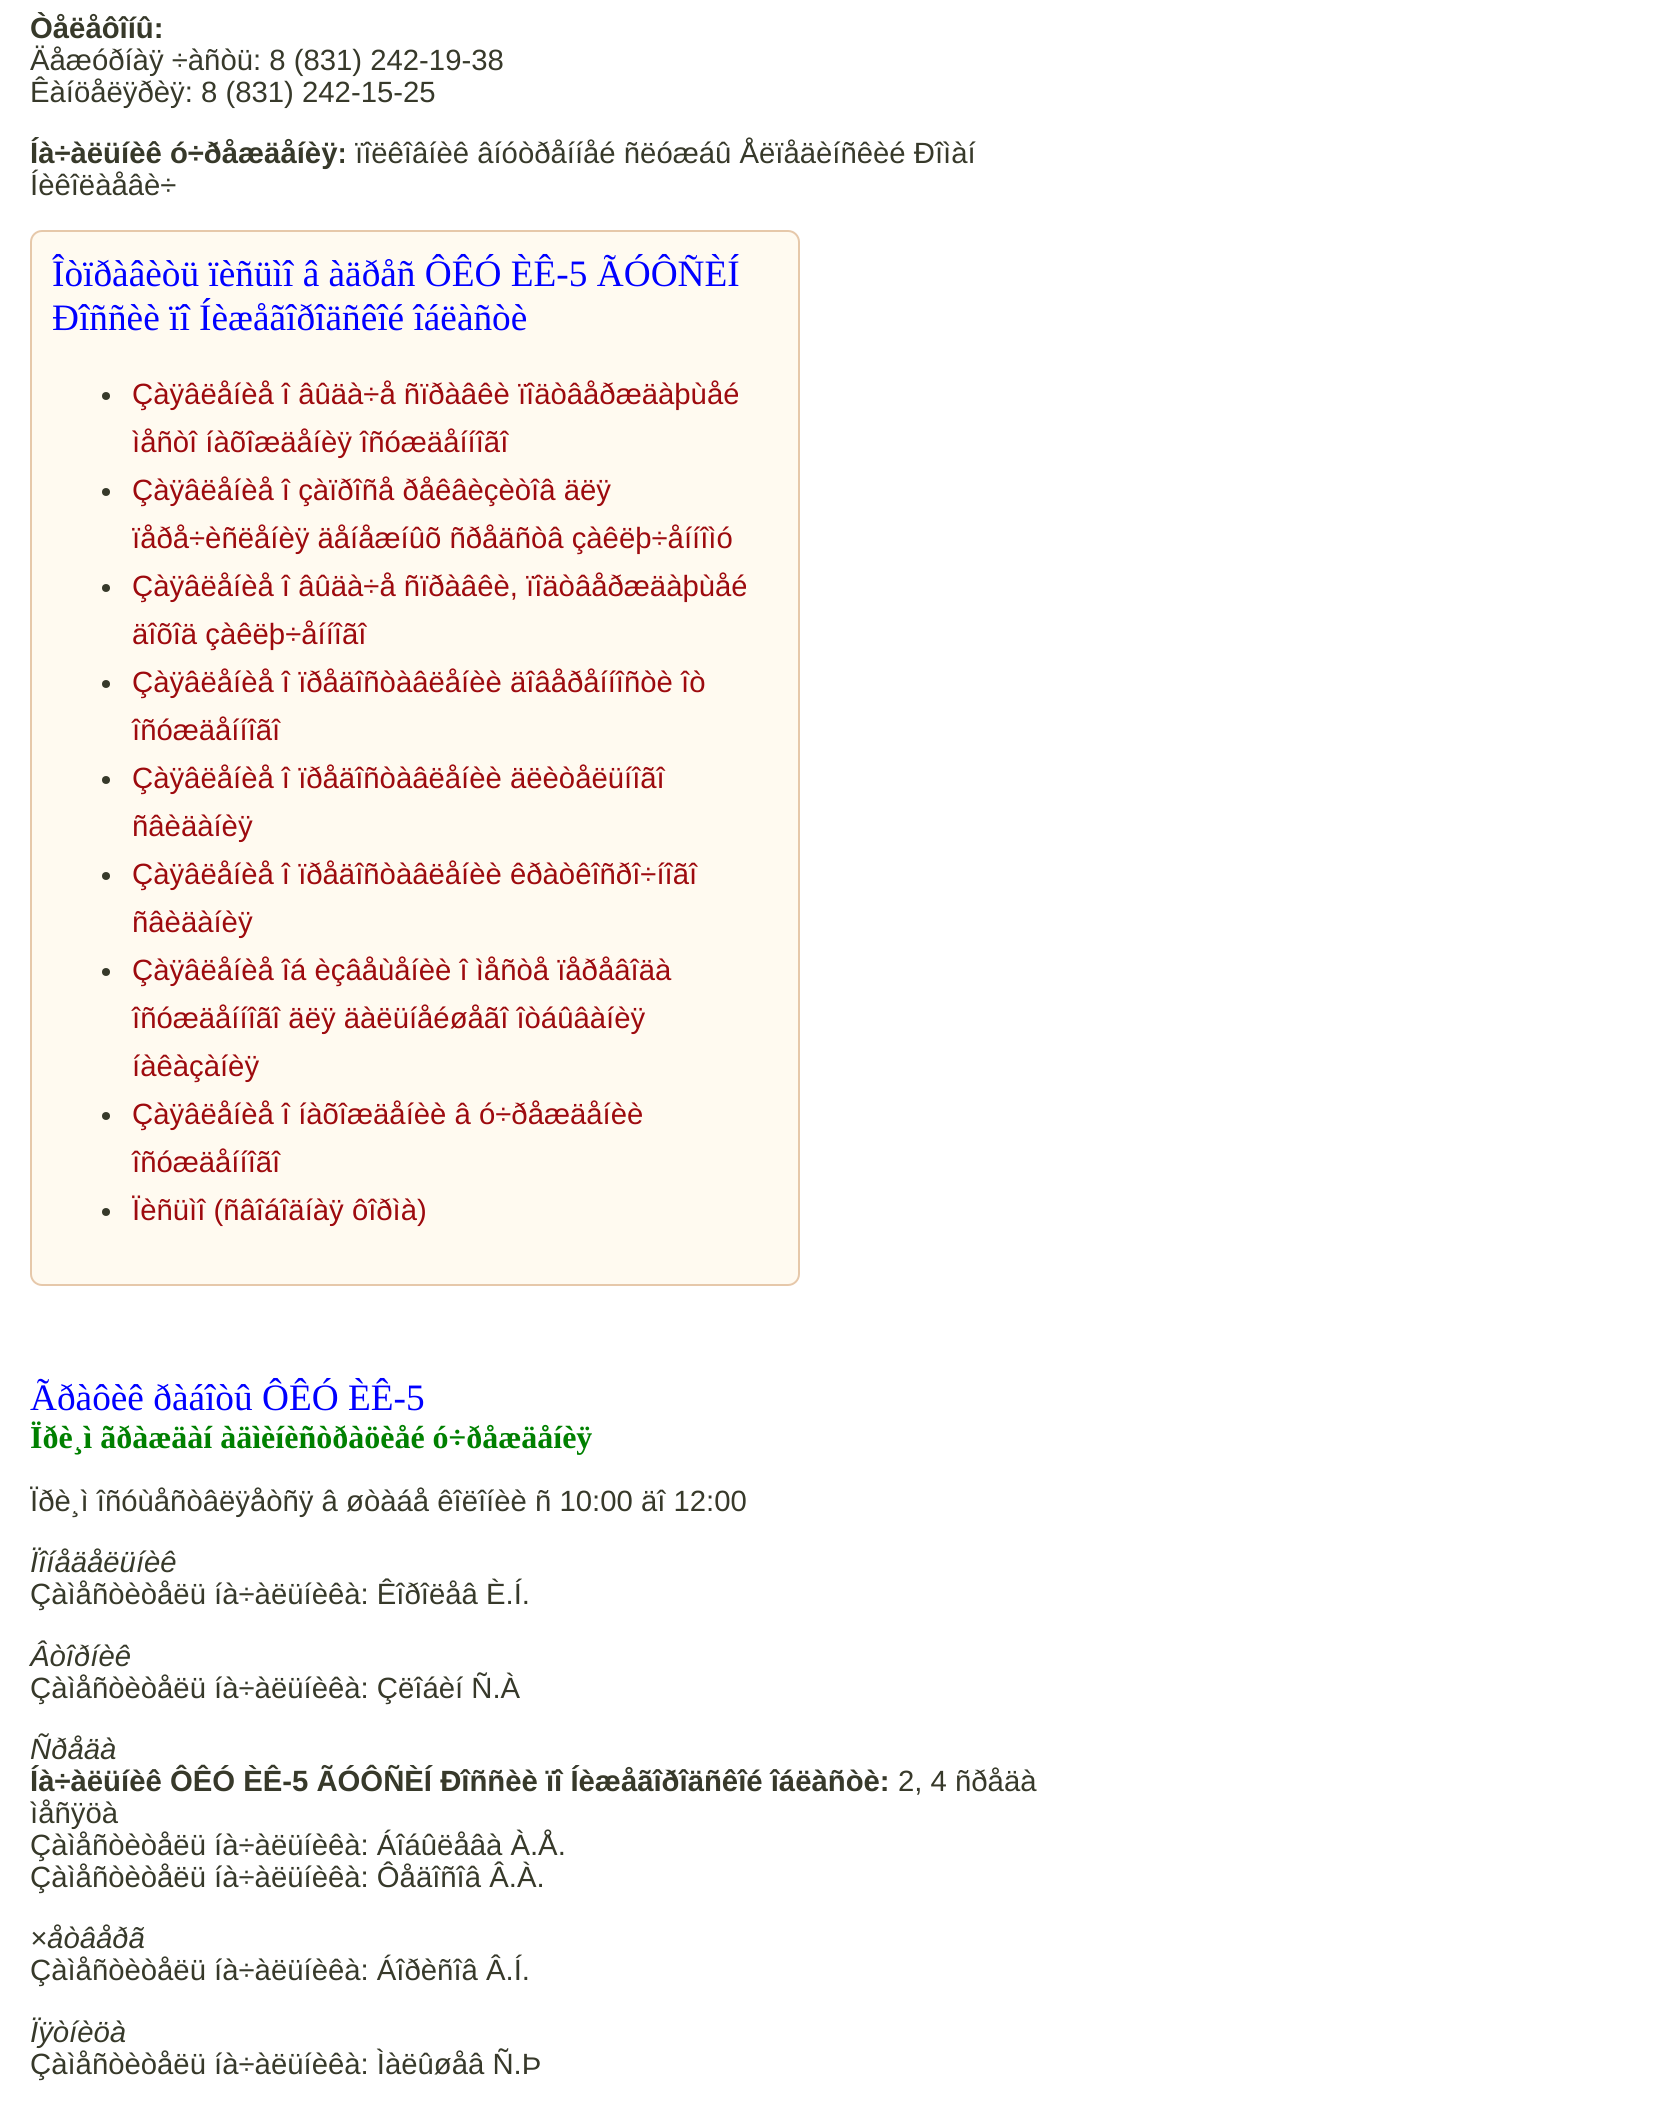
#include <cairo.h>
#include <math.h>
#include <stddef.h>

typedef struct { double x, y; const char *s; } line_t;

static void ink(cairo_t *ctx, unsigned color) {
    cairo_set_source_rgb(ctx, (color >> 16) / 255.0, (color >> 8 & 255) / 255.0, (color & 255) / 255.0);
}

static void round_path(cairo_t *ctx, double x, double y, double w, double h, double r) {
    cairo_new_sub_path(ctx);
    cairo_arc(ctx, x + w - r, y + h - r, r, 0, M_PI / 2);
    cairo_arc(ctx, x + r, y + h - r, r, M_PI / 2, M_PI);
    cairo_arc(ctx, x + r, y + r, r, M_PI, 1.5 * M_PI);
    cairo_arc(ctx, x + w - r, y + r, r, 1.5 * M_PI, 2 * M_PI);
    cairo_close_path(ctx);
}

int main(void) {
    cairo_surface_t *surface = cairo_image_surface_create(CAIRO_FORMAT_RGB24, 1666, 2125);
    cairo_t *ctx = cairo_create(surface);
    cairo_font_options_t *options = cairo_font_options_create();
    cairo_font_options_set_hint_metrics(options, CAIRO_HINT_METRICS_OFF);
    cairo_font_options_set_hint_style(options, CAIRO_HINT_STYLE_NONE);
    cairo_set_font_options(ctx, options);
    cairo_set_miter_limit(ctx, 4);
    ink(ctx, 0xFFFFFF);
    cairo_paint(ctx);
    cairo_select_font_face(ctx, "Liberation Sans", CAIRO_FONT_SLANT_NORMAL, CAIRO_FONT_WEIGHT_BOLD);
    cairo_set_font_size(ctx, 29.3);
    ink(ctx, 0x37392A);
    cairo_move_to(ctx, 30, 38);
    cairo_show_text(ctx, "Òåëåôîíû:");
    cairo_select_font_face(ctx, "Liberation Sans", CAIRO_FONT_SLANT_NORMAL, CAIRO_FONT_WEIGHT_NORMAL);
    cairo_move_to(ctx, 30, 70);
    cairo_show_text(ctx, "Äåæóðíàÿ ÷àñòü: 8 (831) 242-19-38");
    cairo_move_to(ctx, 30, 102);
    cairo_show_text(ctx, "Êàíöåëÿðèÿ: 8 (831) 242-15-25");
    cairo_select_font_face(ctx, "Liberation Sans", CAIRO_FONT_SLANT_NORMAL, CAIRO_FONT_WEIGHT_BOLD);
    cairo_move_to(ctx, 30, 163);
    cairo_show_text(ctx, "Íà÷àëüíèê ó÷ðåæäåíèÿ:");
    cairo_select_font_face(ctx, "Liberation Sans", CAIRO_FONT_SLANT_NORMAL, CAIRO_FONT_WEIGHT_NORMAL);
    cairo_move_to(ctx, 355, 163);
    cairo_show_text(ctx, "ïîëêîâíèê âíóòðåííåé ñëóæáû Åëïåäèíñêèé Ðîìàí");
    cairo_move_to(ctx, 30, 195);
    cairo_show_text(ctx, "Íèêîëàåâè÷");
    ink(ctx, 0xFFFAF0);
    round_path(ctx, 31, 231, 768, 1054, 11);
    cairo_fill_preserve(ctx);
    ink(ctx, 0xE6C8AA);
    cairo_stroke(ctx);
    cairo_select_font_face(ctx, "Liberation Serif", CAIRO_FONT_SLANT_NORMAL, CAIRO_FONT_WEIGHT_NORMAL);
    cairo_set_font_size(ctx, 37.3);
    ink(ctx, 0x0000FF);
    cairo_move_to(ctx, 52, 286);
    cairo_show_text(ctx, "Îòïðàâèòü ïèñüìî â àäðåñ ÔÊÓ ÈÊ-5 ÃÓÔÑÈÍ");
    cairo_move_to(ctx, 52, 330);
    cairo_show_text(ctx, "Ðîññèè ïî Íèæåãîðîäñêîé îáëàñòè");
    ink(ctx, 0x37392A);
    cairo_new_path(ctx);
    cairo_arc(ctx, 106, 396, 4, 0, 2 * M_PI);
    cairo_fill(ctx);
    cairo_select_font_face(ctx, "Liberation Sans", CAIRO_FONT_SLANT_NORMAL, CAIRO_FONT_WEIGHT_NORMAL);
    cairo_set_font_size(ctx, 29.3);
    ink(ctx, 0x9D0A0E);
    cairo_move_to(ctx, 132, 404);
    cairo_show_text(ctx, "Çàÿâëåíèå î âûäà÷å ñïðàâêè ïîäòâåðæäàþùåé");
    cairo_move_to(ctx, 132, 452);
    cairo_show_text(ctx, "ìåñòî íàõîæäåíèÿ îñóæäåííîãî");
    ink(ctx, 0x37392A);
    cairo_new_path(ctx);
    cairo_arc(ctx, 106, 492, 4, 0, 2 * M_PI);
    cairo_fill(ctx);
    ink(ctx, 0x9D0A0E);
    cairo_move_to(ctx, 132, 500);
    cairo_show_text(ctx, "Çàÿâëåíèå î çàïðîñå ðåêâèçèòîâ äëÿ");
    cairo_move_to(ctx, 132, 548);
    cairo_show_text(ctx, "ïåðå÷èñëåíèÿ äåíåæíûõ ñðåäñòâ çàêëþ÷åííîìó");
    ink(ctx, 0x37392A);
    cairo_new_path(ctx);
    cairo_arc(ctx, 106, 588, 4, 0, 2 * M_PI);
    cairo_fill(ctx);
    ink(ctx, 0x9D0A0E);
    cairo_move_to(ctx, 132, 596);
    cairo_show_text(ctx, "Çàÿâëåíèå î âûäà÷å ñïðàâêè, ïîäòâåðæäàþùåé");
    cairo_move_to(ctx, 132, 644);
    cairo_show_text(ctx, "äîõîä çàêëþ÷åííîãî");
    ink(ctx, 0x37392A);
    cairo_new_path(ctx);
    cairo_arc(ctx, 106, 684, 4, 0, 2 * M_PI);
    cairo_fill(ctx);
    ink(ctx, 0x9D0A0E);
    cairo_move_to(ctx, 132, 692);
    cairo_show_text(ctx, "Çàÿâëåíèå î ïðåäîñòàâëåíèè äîâåðåííîñòè îò");
    cairo_move_to(ctx, 132, 740);
    cairo_show_text(ctx, "îñóæäåííîãî");
    ink(ctx, 0x37392A);
    cairo_new_path(ctx);
    cairo_arc(ctx, 106, 780, 4, 0, 2 * M_PI);
    cairo_fill(ctx);
    ink(ctx, 0x9D0A0E);
    cairo_move_to(ctx, 132, 788);
    cairo_show_text(ctx, "Çàÿâëåíèå î ïðåäîñòàâëåíèè äëèòåëüíîãî");
    cairo_move_to(ctx, 132, 836);
    cairo_show_text(ctx, "ñâèäàíèÿ");
    ink(ctx, 0x37392A);
    cairo_new_path(ctx);
    cairo_arc(ctx, 106, 876, 4, 0, 2 * M_PI);
    cairo_fill(ctx);
    ink(ctx, 0x9D0A0E);
    cairo_move_to(ctx, 132, 884);
    cairo_show_text(ctx, "Çàÿâëåíèå î ïðåäîñòàâëåíèè êðàòêîñðî÷íîãî");
    cairo_move_to(ctx, 132, 932);
    cairo_show_text(ctx, "ñâèäàíèÿ");
    ink(ctx, 0x37392A);
    cairo_new_path(ctx);
    cairo_arc(ctx, 106, 972, 4, 0, 2 * M_PI);
    cairo_fill(ctx);
    ink(ctx, 0x9D0A0E);
    {
        static const line_t items[] = {
            {132, 980, "Çàÿâëåíèå îá èçâåùåíèè î ìåñòå ïåðåâîäà"},
            {132, 1028, "îñóæäåííîãî äëÿ äàëüíåéøåãî îòáûâàíèÿ"},
            {132, 1076, "íàêàçàíèÿ"},
        };
        for (size_t i = 0; i < sizeof items / sizeof *items; i++) {
            cairo_move_to(ctx, items[i].x, items[i].y);
            cairo_show_text(ctx, items[i].s);
        }
    }
    ink(ctx, 0x37392A);
    cairo_new_path(ctx);
    cairo_arc(ctx, 106, 1116, 4, 0, 2 * M_PI);
    cairo_fill(ctx);
    ink(ctx, 0x9D0A0E);
    cairo_move_to(ctx, 132, 1124);
    cairo_show_text(ctx, "Çàÿâëåíèå î íàõîæäåíèè â ó÷ðåæäåíèè");
    cairo_move_to(ctx, 132, 1172);
    cairo_show_text(ctx, "îñóæäåííîãî");
    ink(ctx, 0x37392A);
    cairo_new_path(ctx);
    cairo_arc(ctx, 106, 1212, 4, 0, 2 * M_PI);
    cairo_fill(ctx);
    ink(ctx, 0x9D0A0E);
    cairo_move_to(ctx, 132, 1220);
    cairo_show_text(ctx, "Ïèñüìî (ñâîáîäíàÿ ôîðìà)");
    cairo_select_font_face(ctx, "Liberation Serif", CAIRO_FONT_SLANT_NORMAL, CAIRO_FONT_WEIGHT_NORMAL);
    cairo_set_font_size(ctx, 37.3);
    ink(ctx, 0x0000FF);
    cairo_move_to(ctx, 30, 1410);
    cairo_show_text(ctx, "Ãðàôèê ðàáîòû ÔÊÓ ÈÊ-5");
    cairo_select_font_face(ctx, "Liberation Serif", CAIRO_FONT_SLANT_NORMAL, CAIRO_FONT_WEIGHT_BOLD);
    cairo_set_font_size(ctx, 32);
    ink(ctx, 0x008000);
    cairo_move_to(ctx, 30, 1448);
    cairo_show_text(ctx, "Ïðè¸ì ãðàæäàí àäìèíèñòðàöèåé ó÷ðåæäåíèÿ");
    cairo_select_font_face(ctx, "Liberation Sans", CAIRO_FONT_SLANT_NORMAL, CAIRO_FONT_WEIGHT_NORMAL);
    cairo_set_font_size(ctx, 29.3);
    ink(ctx, 0x37392A);
    cairo_move_to(ctx, 30, 1511);
    cairo_show_text(ctx, "Ïðè¸ì îñóùåñòâëÿåòñÿ â øòàáå êîëîíèè ñ 10:00 äî 12:00");
    cairo_select_font_face(ctx, "Liberation Sans", CAIRO_FONT_SLANT_ITALIC, CAIRO_FONT_WEIGHT_NORMAL);
    cairo_move_to(ctx, 30, 1572);
    cairo_show_text(ctx, "Ïîíåäåëüíèê");
    cairo_select_font_face(ctx, "Liberation Sans", CAIRO_FONT_SLANT_NORMAL, CAIRO_FONT_WEIGHT_NORMAL);
    cairo_move_to(ctx, 30, 1604);
    cairo_show_text(ctx, "Çàìåñòèòåëü íà÷àëüíèêà: Êîðîëåâ È.Í.");
    cairo_select_font_face(ctx, "Liberation Sans", CAIRO_FONT_SLANT_ITALIC, CAIRO_FONT_WEIGHT_NORMAL);
    cairo_move_to(ctx, 30, 1666);
    cairo_show_text(ctx, "Âòîðíèê");
    cairo_select_font_face(ctx, "Liberation Sans", CAIRO_FONT_SLANT_NORMAL, CAIRO_FONT_WEIGHT_NORMAL);
    cairo_move_to(ctx, 30, 1698);
    cairo_show_text(ctx, "Çàìåñòèòåëü íà÷àëüíèêà: Çëîáèí Ñ.À");
    cairo_select_font_face(ctx, "Liberation Sans", CAIRO_FONT_SLANT_ITALIC, CAIRO_FONT_WEIGHT_NORMAL);
    cairo_move_to(ctx, 30, 1759);
    cairo_show_text(ctx, "Ñðåäà");
    cairo_select_font_face(ctx, "Liberation Sans", CAIRO_FONT_SLANT_NORMAL, CAIRO_FONT_WEIGHT_BOLD);
    cairo_move_to(ctx, 30, 1791);
    cairo_show_text(ctx, "Íà÷àëüíèê ÔÊÓ ÈÊ-5 ÃÓÔÑÈÍ Ðîññèè ïî Íèæåãîðîäñêîé îáëàñòè:");
    cairo_select_font_face(ctx, "Liberation Sans", CAIRO_FONT_SLANT_NORMAL, CAIRO_FONT_WEIGHT_NORMAL);
    {
        static const line_t items[] = {
            {898, 1791, "2, 4 ñðåäà"},
            {30, 1823, "ìåñÿöà"},
            {30, 1855, "Çàìåñòèòåëü íà÷àëüíèêà: Áîáûëåâà À.Å."},
            {30, 1887, "Çàìåñòèòåëü íà÷àëüíèêà: Ôåäîñîâ Â.À."},
        };
        for (size_t i = 0; i < sizeof items / sizeof *items; i++) {
            cairo_move_to(ctx, items[i].x, items[i].y);
            cairo_show_text(ctx, items[i].s);
        }
    }
    cairo_select_font_face(ctx, "Liberation Sans", CAIRO_FONT_SLANT_ITALIC, CAIRO_FONT_WEIGHT_NORMAL);
    cairo_move_to(ctx, 30, 1948);
    cairo_show_text(ctx, "×åòâåðã");
    cairo_select_font_face(ctx, "Liberation Sans", CAIRO_FONT_SLANT_NORMAL, CAIRO_FONT_WEIGHT_NORMAL);
    cairo_move_to(ctx, 30, 1980);
    cairo_show_text(ctx, "Çàìåñòèòåëü íà÷àëüíèêà: Áîðèñîâ Â.Í.");
    cairo_select_font_face(ctx, "Liberation Sans", CAIRO_FONT_SLANT_ITALIC, CAIRO_FONT_WEIGHT_NORMAL);
    cairo_move_to(ctx, 30, 2042);
    cairo_show_text(ctx, "Ïÿòíèöà");
    cairo_select_font_face(ctx, "Liberation Sans", CAIRO_FONT_SLANT_NORMAL, CAIRO_FONT_WEIGHT_NORMAL);
    cairo_move_to(ctx, 30, 2074);
    cairo_show_text(ctx, "Çàìåñòèòåëü íà÷àëüíèêà: Ìàëûøåâ Ñ.Þ");
    cairo_surface_write_to_png(surface, "image.png");
    cairo_font_options_destroy(options);
    cairo_destroy(ctx);
    cairo_surface_destroy(surface);
    return 0;
}
